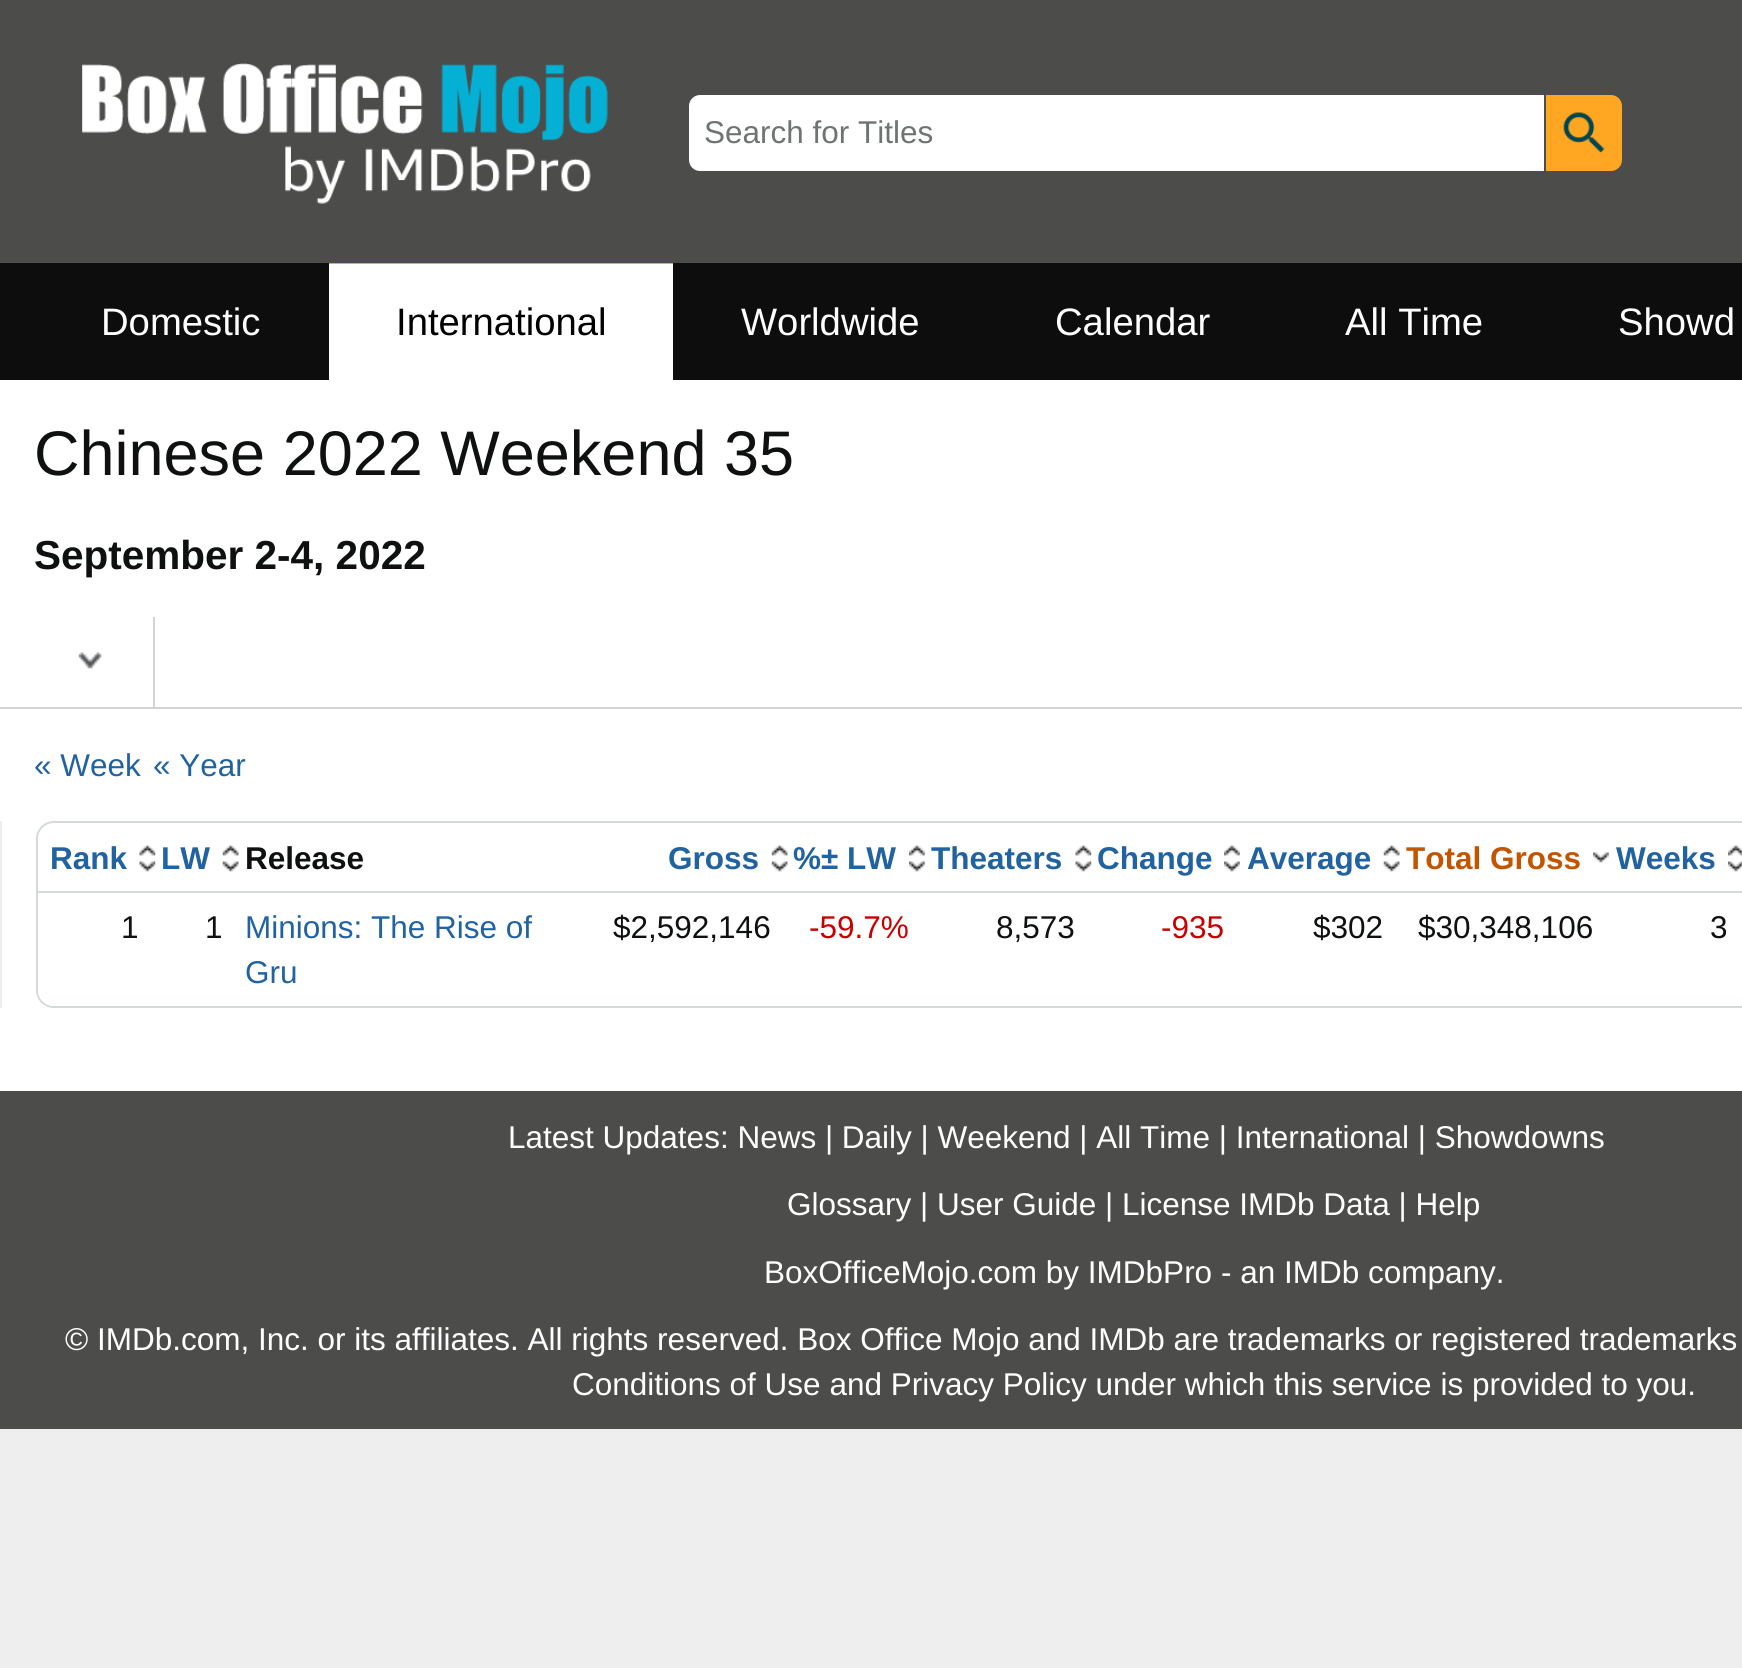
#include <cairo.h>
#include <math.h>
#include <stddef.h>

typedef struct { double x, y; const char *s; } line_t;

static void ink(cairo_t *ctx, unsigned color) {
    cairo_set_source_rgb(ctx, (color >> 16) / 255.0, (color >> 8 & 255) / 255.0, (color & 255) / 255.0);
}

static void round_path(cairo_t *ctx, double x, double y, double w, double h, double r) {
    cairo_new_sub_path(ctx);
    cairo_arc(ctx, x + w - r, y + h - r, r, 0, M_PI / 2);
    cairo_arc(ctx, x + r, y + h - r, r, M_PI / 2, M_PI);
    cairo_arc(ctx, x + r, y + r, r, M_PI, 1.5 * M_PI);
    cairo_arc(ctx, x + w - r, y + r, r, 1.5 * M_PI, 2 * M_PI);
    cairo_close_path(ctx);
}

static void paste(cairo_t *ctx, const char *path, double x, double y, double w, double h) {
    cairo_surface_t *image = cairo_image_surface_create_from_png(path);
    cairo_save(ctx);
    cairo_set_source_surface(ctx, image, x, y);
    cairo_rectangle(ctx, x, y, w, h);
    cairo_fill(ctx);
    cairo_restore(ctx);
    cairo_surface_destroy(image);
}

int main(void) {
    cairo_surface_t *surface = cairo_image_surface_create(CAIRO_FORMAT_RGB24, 1742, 1668);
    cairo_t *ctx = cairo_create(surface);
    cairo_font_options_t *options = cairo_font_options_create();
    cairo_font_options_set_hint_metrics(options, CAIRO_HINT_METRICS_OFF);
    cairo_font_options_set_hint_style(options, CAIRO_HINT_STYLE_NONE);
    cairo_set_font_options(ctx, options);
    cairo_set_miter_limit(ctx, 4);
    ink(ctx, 0xEEEEEE);
    cairo_paint(ctx);
    ink(ctx, 0x4C4D4B);
    cairo_rectangle(ctx, 0, 0, 1742, 263);
    cairo_fill(ctx);
    paste(ctx, "media/1.png", 82, 63, 526, 141);
    ink(ctx, 0xFFFFFF);
    cairo_new_path(ctx);
    cairo_move_to(ctx, 700, 95);
    cairo_line_to(ctx, 1544, 95);
    cairo_line_to(ctx, 1544, 171);
    cairo_line_to(ctx, 700, 171);
    cairo_curve_to(ctx, 694, 171, 689, 166, 689, 160);
    cairo_line_to(ctx, 689, 106);
    cairo_curve_to(ctx, 689, 100, 694, 95, 700, 95);
    cairo_close_path(ctx);
    cairo_fill(ctx);
    cairo_select_font_face(ctx, "Liberation Sans", CAIRO_FONT_SLANT_NORMAL, CAIRO_FONT_WEIGHT_NORMAL);
    cairo_set_font_size(ctx, 31.5);
    ink(ctx, 0x6F7373);
    cairo_move_to(ctx, 704, 143);
    cairo_show_text(ctx, "Search for Titles");
    ink(ctx, 0xFFA722);
    cairo_new_path(ctx);
    cairo_move_to(ctx, 1546, 95);
    cairo_line_to(ctx, 1611, 95);
    cairo_curve_to(ctx, 1617, 95, 1622, 100, 1622, 106);
    cairo_line_to(ctx, 1622, 160);
    cairo_curve_to(ctx, 1622, 166, 1617, 171, 1611, 171);
    cairo_line_to(ctx, 1546, 171);
    cairo_close_path(ctx);
    cairo_fill(ctx);
    paste(ctx, "media/2.png", 1563, 112, 42, 41);
    ink(ctx, 0x0E0D0D);
    cairo_rectangle(ctx, 0, 263, 1742, 117);
    cairo_fill(ctx);
    cairo_set_font_size(ctx, 38.25);
    ink(ctx, 0xFFFFFF);
    cairo_move_to(ctx, 101, 335);
    cairo_show_text(ctx, "Domestic");
    cairo_rectangle(ctx, 329, 264, 344, 116);
    cairo_fill(ctx);
    ink(ctx, 0xFFA722);
    cairo_rectangle(ctx, 329, 263, 344, 1);
    cairo_fill(ctx);
    ink(ctx, 0x000000);
    cairo_move_to(ctx, 396, 335);
    cairo_show_text(ctx, "International");
    ink(ctx, 0xFFFFFF);
    {
        static const line_t items[] = {
            {741, 335, "Worldwide"},
            {1055, 335, "Calendar"},
            {1345, 335, "All Time"},
            {1618, 335, "Showd"},
        };
        for (size_t i = 0; i < sizeof items / sizeof *items; i++) {
            cairo_move_to(ctx, items[i].x, items[i].y);
            cairo_show_text(ctx, items[i].s);
        }
    }
    cairo_rectangle(ctx, 0, 380, 1742, 711);
    cairo_fill(ctx);
    cairo_set_font_size(ctx, 63);
    ink(ctx, 0x0F1111);
    cairo_move_to(ctx, 34, 475);
    cairo_show_text(ctx, "Chinese 2022 Weekend 35");
    cairo_select_font_face(ctx, "Liberation Sans", CAIRO_FONT_SLANT_NORMAL, CAIRO_FONT_WEIGHT_BOLD);
    cairo_set_font_size(ctx, 40.5);
    cairo_move_to(ctx, 34, 569);
    cairo_show_text(ctx, "September 2-4, 2022");
    ink(ctx, 0xD3D3D3);
    cairo_rectangle(ctx, 0, 707, 1742, 2);
    cairo_fill(ctx);
    cairo_rectangle(ctx, 153, 617, 2, 90);
    cairo_fill(ctx);
    paste(ctx, "media/3.png", 78, 652, 24, 17);
    cairo_select_font_face(ctx, "Liberation Sans", CAIRO_FONT_SLANT_NORMAL, CAIRO_FONT_WEIGHT_NORMAL);
    cairo_set_font_size(ctx, 31.5);
    ink(ctx, 0x2162A1);
    cairo_move_to(ctx, 34, 776);
    cairo_show_text(ctx, "« Week");
    cairo_move_to(ctx, 153, 776);
    cairo_show_text(ctx, "« Year");
    ink(ctx, 0xEEEEEE);
    cairo_rectangle(ctx, 0, 821, 2, 187);
    cairo_fill(ctx);
    round_path(ctx, 37, 822, 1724, 185, 17);
    ink(ctx, 0xD5D9D9);
    cairo_stroke(ctx);
    ink(ctx, 0xFFFFFF);
    cairo_new_path(ctx);
    cairo_move_to(ctx, 54, 824);
    cairo_line_to(ctx, 151, 824);
    cairo_line_to(ctx, 151, 893);
    cairo_line_to(ctx, 38, 893);
    cairo_line_to(ctx, 38, 840);
    cairo_curve_to(ctx, 38, 831, 45, 824, 54, 824);
    cairo_close_path(ctx);
    cairo_fill(ctx);
    ink(ctx, 0xD5D9D9);
    cairo_rectangle(ctx, 38, 891, 1704, 2);
    cairo_fill(ctx);
    cairo_select_font_face(ctx, "Liberation Sans", CAIRO_FONT_SLANT_NORMAL, CAIRO_FONT_WEIGHT_BOLD);
    ink(ctx, 0x2162A1);
    cairo_move_to(ctx, 50, 869);
    cairo_show_text(ctx, "Rank");
    paste(ctx, "media/4.png", 139, 845, 17, 11);
    paste(ctx, "media/5.png", 139, 861, 17, 11);
    cairo_move_to(ctx, 161, 869);
    cairo_show_text(ctx, "LW");
    paste(ctx, "media/6.png", 222, 845, 17, 11);
    paste(ctx, "media/7.png", 222, 861, 17, 11);
    ink(ctx, 0x0F1111);
    cairo_move_to(ctx, 245, 869);
    cairo_show_text(ctx, "Release");
    ink(ctx, 0x2162A1);
    cairo_move_to(ctx, 668, 869);
    cairo_show_text(ctx, "Gross");
    paste(ctx, "media/8.png", 771, 845, 17, 11);
    paste(ctx, "media/9.png", 771, 861, 17, 11);
    cairo_move_to(ctx, 793, 869);
    cairo_show_text(ctx, "%± LW");
    paste(ctx, "media/10.png", 909, 845, 16, 11);
    paste(ctx, "media/11.png", 909, 861, 16, 11);
    cairo_move_to(ctx, 931, 869);
    cairo_show_text(ctx, "Theaters");
    paste(ctx, "media/4.png", 1075, 845, 17, 11);
    paste(ctx, "media/5.png", 1075, 861, 17, 11);
    cairo_move_to(ctx, 1097, 869);
    cairo_show_text(ctx, "Change");
    paste(ctx, "media/10.png", 1224, 845, 16, 11);
    paste(ctx, "media/11.png", 1224, 861, 16, 11);
    cairo_move_to(ctx, 1247, 869);
    cairo_show_text(ctx, "Average");
    paste(ctx, "media/8.png", 1383, 845, 17, 11);
    paste(ctx, "media/9.png", 1383, 861, 17, 11);
    ink(ctx, 0xC45500);
    cairo_move_to(ctx, 1406, 869);
    cairo_show_text(ctx, "Total Gross");
    paste(ctx, "media/12.png", 1593, 852, 16, 11);
    ink(ctx, 0x2162A1);
    cairo_move_to(ctx, 1616, 869);
    cairo_show_text(ctx, "Weeks");
    paste(ctx, "media/13.png", 1728, 845, 14, 11);
    paste(ctx, "media/14.png", 1728, 861, 14, 11);
    ink(ctx, 0xFFFFFF);
    cairo_new_path(ctx);
    cairo_move_to(ctx, 38, 893);
    cairo_line_to(ctx, 151, 893);
    cairo_line_to(ctx, 151, 1006);
    cairo_line_to(ctx, 54, 1006);
    cairo_curve_to(ctx, 45, 1006, 38, 999, 38, 990);
    cairo_close_path(ctx);
    cairo_fill(ctx);
    cairo_select_font_face(ctx, "Liberation Sans", CAIRO_FONT_SLANT_NORMAL, CAIRO_FONT_WEIGHT_NORMAL);
    ink(ctx, 0x0F1111);
    cairo_move_to(ctx, 121, 938);
    cairo_show_text(ctx, "1");
    cairo_move_to(ctx, 205, 938);
    cairo_show_text(ctx, "1");
    ink(ctx, 0x2162A1);
    cairo_move_to(ctx, 245, 938);
    cairo_show_text(ctx, "Minions: The Rise of");
    cairo_move_to(ctx, 245, 983);
    cairo_show_text(ctx, "Gru");
    ink(ctx, 0x0F1111);
    cairo_move_to(ctx, 613, 938);
    cairo_show_text(ctx, "$2,592,146");
    ink(ctx, 0xC90000);
    cairo_move_to(ctx, 809, 938);
    cairo_show_text(ctx, "-59.7%");
    ink(ctx, 0x0F1111);
    cairo_move_to(ctx, 996, 938);
    cairo_show_text(ctx, "8,573");
    ink(ctx, 0xC90000);
    cairo_move_to(ctx, 1161, 938);
    cairo_show_text(ctx, "-935");
    ink(ctx, 0x0F1111);
    {
        static const line_t items[] = {
            {1313, 938, "$302"},
            {1418, 938, "$30,348,106"},
            {1710, 938, "3"},
        };
        for (size_t i = 0; i < sizeof items / sizeof *items; i++) {
            cairo_move_to(ctx, items[i].x, items[i].y);
            cairo_show_text(ctx, items[i].s);
        }
    }
    ink(ctx, 0x4C4D4B);
    cairo_rectangle(ctx, 0, 1091, 1742, 338);
    cairo_fill(ctx);
    ink(ctx, 0xFFFFFF);
    {
        static const line_t items[] = {
            {508, 1148, "Latest Updates: News | Daily | Weekend | All Time | International | Showdowns"},
            {787, 1215, "Glossary | User Guide | License IMDb Data | Help"},
            {764, 1283, "BoxOfficeMojo.com by IMDbPro - an IMDb company."},
            {65, 1350, "© IMDb.com, Inc. or its affiliates. All rights reserved. Box Office Mojo and IMDb are trademarks or registered trademarks"},
            {572, 1395, "Conditions of Use and Privacy Policy under which this service is provided to you."},
        };
        for (size_t i = 0; i < sizeof items / sizeof *items; i++) {
            cairo_move_to(ctx, items[i].x, items[i].y);
            cairo_show_text(ctx, items[i].s);
        }
    }
    cairo_surface_write_to_png(surface, "image.png");
    cairo_font_options_destroy(options);
    cairo_destroy(ctx);
    cairo_surface_destroy(surface);
    return 0;
}
